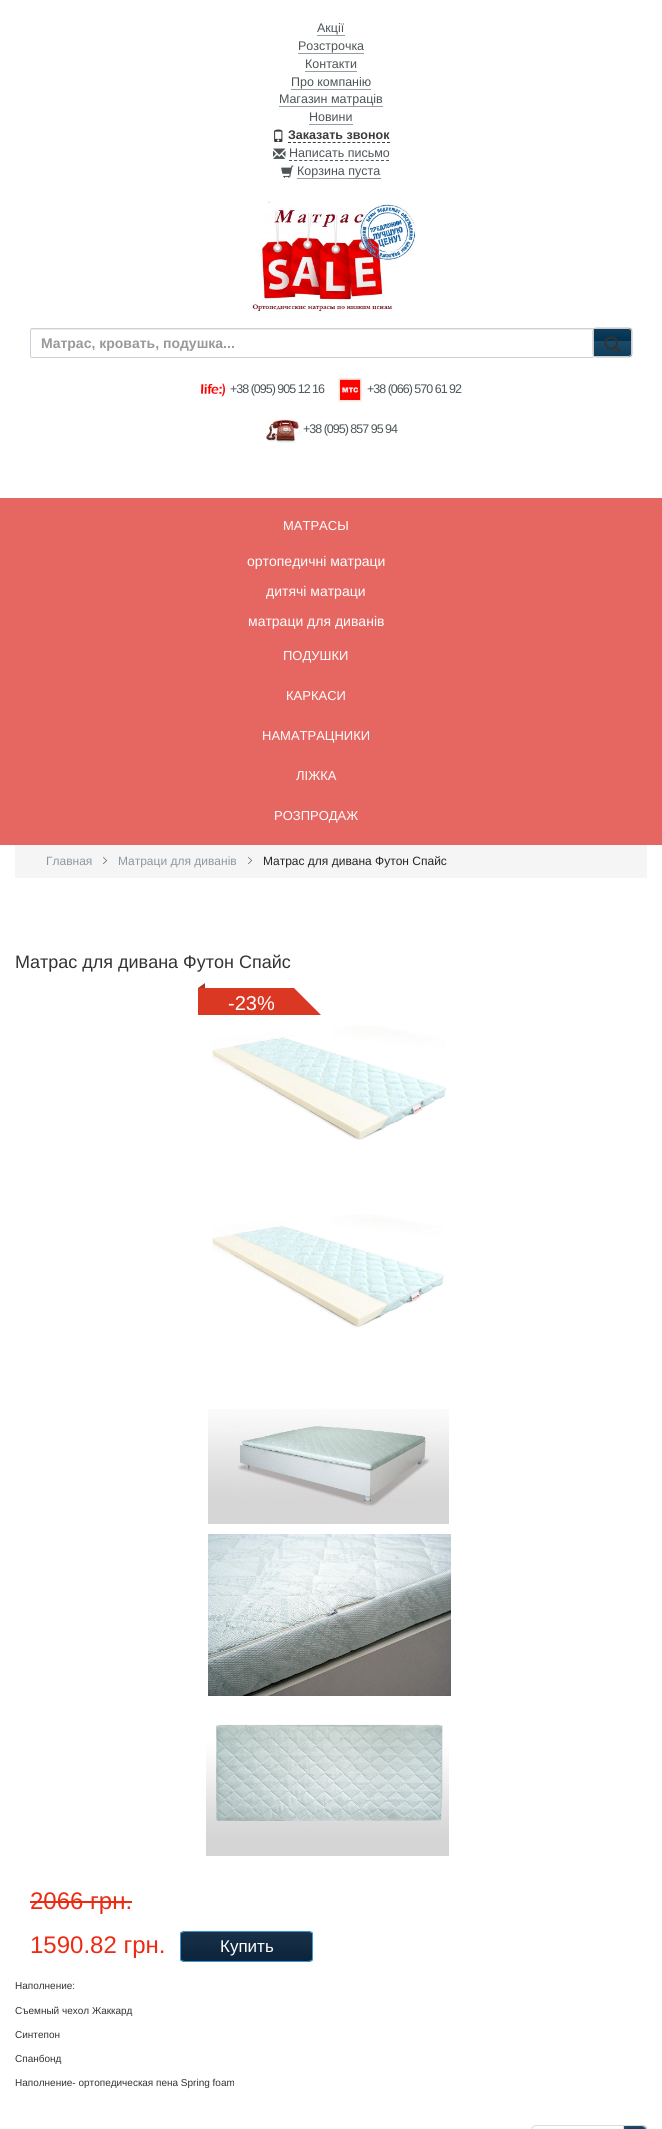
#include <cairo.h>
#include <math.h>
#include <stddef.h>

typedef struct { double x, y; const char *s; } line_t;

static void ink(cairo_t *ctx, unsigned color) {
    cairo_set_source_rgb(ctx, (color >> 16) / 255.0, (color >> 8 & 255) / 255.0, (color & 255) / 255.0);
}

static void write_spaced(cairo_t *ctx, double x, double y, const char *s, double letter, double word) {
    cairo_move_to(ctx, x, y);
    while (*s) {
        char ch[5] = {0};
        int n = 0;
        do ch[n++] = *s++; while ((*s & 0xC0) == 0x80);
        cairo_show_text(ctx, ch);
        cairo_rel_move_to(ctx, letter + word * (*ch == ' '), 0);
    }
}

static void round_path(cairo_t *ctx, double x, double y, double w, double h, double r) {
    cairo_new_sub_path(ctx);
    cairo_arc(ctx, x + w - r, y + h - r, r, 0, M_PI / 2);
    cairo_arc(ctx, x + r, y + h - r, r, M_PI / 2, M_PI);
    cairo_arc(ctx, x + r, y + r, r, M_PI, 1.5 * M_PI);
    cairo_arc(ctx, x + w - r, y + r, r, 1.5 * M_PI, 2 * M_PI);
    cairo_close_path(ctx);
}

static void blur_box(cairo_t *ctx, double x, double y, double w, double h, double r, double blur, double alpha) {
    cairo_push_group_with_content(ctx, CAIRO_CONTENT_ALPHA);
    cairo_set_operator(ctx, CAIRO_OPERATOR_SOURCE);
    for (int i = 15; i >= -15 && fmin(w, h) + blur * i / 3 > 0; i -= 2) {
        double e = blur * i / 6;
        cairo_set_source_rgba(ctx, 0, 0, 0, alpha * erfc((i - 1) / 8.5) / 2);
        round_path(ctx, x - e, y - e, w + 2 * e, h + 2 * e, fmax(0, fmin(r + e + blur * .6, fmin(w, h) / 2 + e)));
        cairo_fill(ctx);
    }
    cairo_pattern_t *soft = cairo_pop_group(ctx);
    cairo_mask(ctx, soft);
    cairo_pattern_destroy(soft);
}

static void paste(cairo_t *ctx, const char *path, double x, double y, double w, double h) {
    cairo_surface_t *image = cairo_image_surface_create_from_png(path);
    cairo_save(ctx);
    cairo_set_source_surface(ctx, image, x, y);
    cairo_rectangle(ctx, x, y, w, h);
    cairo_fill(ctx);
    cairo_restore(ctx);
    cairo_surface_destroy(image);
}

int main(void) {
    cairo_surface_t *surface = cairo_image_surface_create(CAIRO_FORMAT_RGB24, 662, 2129);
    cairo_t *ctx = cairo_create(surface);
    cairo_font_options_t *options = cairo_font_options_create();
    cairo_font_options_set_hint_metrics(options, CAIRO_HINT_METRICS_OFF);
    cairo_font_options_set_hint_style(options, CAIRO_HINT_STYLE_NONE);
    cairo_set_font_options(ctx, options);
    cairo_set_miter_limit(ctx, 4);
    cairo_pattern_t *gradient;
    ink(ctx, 0xFFFFFF);
    cairo_paint(ctx);
    cairo_select_font_face(ctx, "Liberation Sans", CAIRO_FONT_SLANT_NORMAL, CAIRO_FONT_WEIGHT_NORMAL);
    cairo_set_font_size(ctx, 12.5);
    ink(ctx, 0x4D5558);
    cairo_move_to(ctx, 317, 32);
    cairo_show_text(ctx, "Акції");
    ink(ctx, 0x9A9EA0);
    cairo_rectangle(ctx, 317, 35, 28, 1);
    cairo_fill(ctx);
    ink(ctx, 0x4D5558);
    cairo_move_to(ctx, 298, 50);
    cairo_show_text(ctx, "Розстрочка");
    ink(ctx, 0x9A9EA0);
    cairo_rectangle(ctx, 298, 53, 66, 1);
    cairo_fill(ctx);
    ink(ctx, 0x4D5558);
    cairo_move_to(ctx, 305, 68);
    cairo_show_text(ctx, "Контакти");
    ink(ctx, 0x9A9EA0);
    cairo_rectangle(ctx, 305, 71, 52, 1);
    cairo_fill(ctx);
    ink(ctx, 0x4D5558);
    cairo_move_to(ctx, 291, 86);
    cairo_show_text(ctx, "Про компанію");
    ink(ctx, 0x9A9EA0);
    cairo_rectangle(ctx, 291, 89, 80, 1);
    cairo_fill(ctx);
    ink(ctx, 0x4D5558);
    cairo_move_to(ctx, 279, 103);
    cairo_show_text(ctx, "Магазин матраців");
    ink(ctx, 0x9A9EA0);
    cairo_rectangle(ctx, 279, 106, 104, 1);
    cairo_fill(ctx);
    ink(ctx, 0x4D5558);
    cairo_move_to(ctx, 309, 121);
    cairo_show_text(ctx, "Новини");
    ink(ctx, 0x9A9EA0);
    cairo_rectangle(ctx, 309, 124, 44, 1);
    cairo_fill(ctx);
    paste(ctx, "media/1.png", 274, 129, 9, 13);
    cairo_select_font_face(ctx, "Liberation Sans", CAIRO_FONT_SLANT_NORMAL, CAIRO_FONT_WEIGHT_BOLD);
    ink(ctx, 0x3B3B3B);
    cairo_move_to(ctx, 288, 139);
    cairo_show_text(ctx, "Заказать звонок");
    cairo_new_path(ctx);
    cairo_move_to(ctx, 288, 142.5);
    cairo_line_to(ctx, 390, 142.5);
    cairo_set_line_width(ctx, 1);
    cairo_set_dash(ctx, (double[]){3, 1.95}, 2, 0);
    cairo_stroke(ctx);
    paste(ctx, "media/2.png", 273, 148, 13, 11);
    cairo_select_font_face(ctx, "Liberation Sans", CAIRO_FONT_SLANT_NORMAL, CAIRO_FONT_WEIGHT_NORMAL);
    ink(ctx, 0x4D5558);
    cairo_move_to(ctx, 289, 157);
    cairo_show_text(ctx, "Написать письмо");
    cairo_new_path(ctx);
    cairo_move_to(ctx, 289, 160.5);
    cairo_line_to(ctx, 389, 160.5);
    cairo_set_dash(ctx, (double[]){3, 2.11}, 2, 0);
    cairo_stroke(ctx);
    paste(ctx, "media/3.png", 281, 165, 13, 13);
    cairo_move_to(ctx, 297, 175);
    cairo_show_text(ctx, "Корзина пуста");
    ink(ctx, 0x9A9EA0);
    cairo_rectangle(ctx, 297, 178, 52, 1);
    cairo_fill(ctx);
    ink(ctx, 0x868B8D);
    cairo_rectangle(ctx, 349, 178, 32, 1);
    cairo_fill(ctx);
    paste(ctx, "media/4.png", 251, 201, 165, 113);
    ink(ctx, 0xECECEC);
    cairo_new_path(ctx);
    cairo_move_to(ctx, 32, 329);
    cairo_line_to(ctx, 31, 330);
    cairo_line_to(ctx, 593, 330);
    cairo_line_to(ctx, 592, 329);
    cairo_close_path(ctx);
    cairo_fill(ctx);
    round_path(ctx, 30.5, 328.5, 563, 29, 1.5);
    ink(ctx, 0xCDD0D9);
    cairo_set_dash(ctx, NULL, 0, 0);
    cairo_stroke(ctx);
    cairo_select_font_face(ctx, "Liberation Sans", CAIRO_FONT_SLANT_NORMAL, CAIRO_FONT_WEIGHT_BOLD);
    cairo_set_font_size(ctx, 14);
    ink(ctx, 0x999999);
    cairo_move_to(ctx, 41, 348);
    cairo_show_text(ctx, "Матрас, кровать, подушка...");
    ink(ctx, 0x000000);
    blur_box(ctx, 593, 328, 39, 29, 3, 0.5, 0.5);
    ink(ctx, 0x023859);
    cairo_new_path(ctx);
    cairo_move_to(ctx, 593, 328);
    cairo_line_to(ctx, 628, 328);
    cairo_curve_to(ctx, 630, 328, 632, 329.5, 632, 331);
    cairo_line_to(ctx, 632, 354);
    cairo_curve_to(ctx, 632, 355.5, 630, 357, 628, 357);
    cairo_line_to(ctx, 593, 357);
    cairo_close_path(ctx);
    cairo_fill(ctx);
    gradient = cairo_pattern_create_linear(613, 341, 613, 314);
    cairo_pattern_add_color_stop_rgba(gradient, 0, 0, 0, 0, 0.1);
    cairo_pattern_add_color_stop_rgba(gradient, 1, 1, 1, 1, 0.1);
    cairo_set_source(ctx, gradient);
    cairo_pattern_destroy(gradient);
    cairo_new_path(ctx);
    cairo_move_to(ctx, 593, 328);
    cairo_line_to(ctx, 593, 341);
    cairo_line_to(ctx, 632, 341);
    cairo_line_to(ctx, 632, 331);
    cairo_curve_to(ctx, 632, 329.5, 630, 328, 628, 328);
    cairo_close_path(ctx);
    cairo_fill(ctx);
    gradient = cairo_pattern_create_linear(613, 368, 613, 341);
    cairo_pattern_add_color_stop_rgba(gradient, 0, 0, 0, 0, 0.1);
    cairo_pattern_add_color_stop_rgba(gradient, 1, 1, 1, 1, 0.1);
    cairo_set_source(ctx, gradient);
    cairo_pattern_destroy(gradient);
    cairo_new_path(ctx);
    cairo_move_to(ctx, 593, 341);
    cairo_line_to(ctx, 593, 357);
    cairo_line_to(ctx, 628, 357);
    cairo_curve_to(ctx, 630, 357, 632, 355.5, 632, 354);
    cairo_line_to(ctx, 632, 341);
    cairo_close_path(ctx);
    cairo_fill(ctx);
    cairo_new_path(ctx);
    cairo_move_to(ctx, 593.5, 328.5);
    cairo_line_to(ctx, 628, 328.5);
    cairo_curve_to(ctx, 630, 328.5, 631.5, 329.5, 631.5, 331);
    cairo_line_to(ctx, 631.5, 354);
    cairo_curve_to(ctx, 631.5, 355.5, 630, 356.5, 628, 356.5);
    cairo_line_to(ctx, 593.5, 356.5);
    cairo_close_path(ctx);
    ink(ctx, 0xCCCCCC);
    cairo_stroke(ctx);
    paste(ctx, "media/5.png", 604, 336, 18, 18);
    paste(ctx, "media/6.png", 201, 383, 24, 14);
    cairo_select_font_face(ctx, "Liberation Sans", CAIRO_FONT_SLANT_NORMAL, CAIRO_FONT_WEIGHT_NORMAL);
    cairo_set_font_size(ctx, 12.5);
    ink(ctx, 0x4D5558);
    write_spaced(ctx, 230, 393, "+38 (095) 905 12 16", -1, 0);
    paste(ctx, "media/7.png", 338, 378, 24, 24);
    write_spaced(ctx, 367, 393, "+38 (066) 570 61 92", -1, 0);
    paste(ctx, "media/8.png", 265, 419, 36, 24);
    write_spaced(ctx, 303, 433, "+38 (095) 857 95 94", -1, 0);
    ink(ctx, 0xE66761);
    cairo_rectangle(ctx, 0, 498, 662, 347);
    cairo_fill(ctx);
    cairo_set_font_size(ctx, 13);
    ink(ctx, 0xFFFFFF);
    cairo_move_to(ctx, 283, 530);
    cairo_show_text(ctx, "МАТРАСЫ");
    cairo_set_font_size(ctx, 14);
    {
        static const line_t items[] = {
            {247, 566, "ортопедичні матраци"},
            {266, 596, "дитячі матраци"},
            {248, 626, "матраци для диванів"},
        };
        for (size_t i = 0; i < sizeof items / sizeof *items; i++) {
            cairo_move_to(ctx, items[i].x, items[i].y);
            cairo_show_text(ctx, items[i].s);
        }
    }
    cairo_set_font_size(ctx, 13);
    {
        static const line_t items[] = {
            {283, 660, "ПОДУШКИ"},
            {286, 700, "КАРКАСИ"},
            {262, 740, "НАМАТРАЦНИКИ"},
            {296, 780, "ЛІЖКА"},
            {274, 820, "РОЗПРОДАЖ"},
        };
        for (size_t i = 0; i < sizeof items / sizeof *items; i++) {
            cairo_move_to(ctx, items[i].x, items[i].y);
            cairo_show_text(ctx, items[i].s);
        }
    }
    ink(ctx, 0xF5F5F5);
    cairo_rectangle(ctx, 15, 845, 632, 33);
    cairo_fill(ctx);
    cairo_set_font_size(ctx, 12);
    ink(ctx, 0x8C98A1);
    cairo_move_to(ctx, 46, 865);
    cairo_show_text(ctx, "Главная");
    paste(ctx, "media/9.png", 103, 857, 4, 7);
    cairo_move_to(ctx, 118, 865);
    cairo_show_text(ctx, "Матраци для диванів");
    paste(ctx, "media/9.png", 248, 857, 4, 7);
    ink(ctx, 0x232629);
    cairo_move_to(ctx, 263, 865);
    cairo_show_text(ctx, "Матрас для дивана Футон Спайс");
    cairo_set_font_size(ctx, 18);
    ink(ctx, 0x333333);
    cairo_move_to(ctx, 15, 968);
    cairo_show_text(ctx, "Матрас для дивана Футон Спайс");
    paste(ctx, "media/10.png", 198, 983, 123, 32);
    cairo_set_font_size(ctx, 20);
    ink(ctx, 0xFFFFFF);
    cairo_move_to(ctx, 228, 1010);
    cairo_show_text(ctx, "-23%");
    paste(ctx, "media/11.png", 212, 1025, 234, 115);
    paste(ctx, "media/12.png", 212, 1214, 232, 114);
    paste(ctx, "media/13.png", 208, 1409, 241, 115);
    paste(ctx, "media/14.png", 208, 1534, 243, 162);
    paste(ctx, "media/15.png", 206, 1724, 243, 132);
    cairo_set_font_size(ctx, 24);
    ink(ctx, 0xEB2C14);
    cairo_move_to(ctx, 30, 1909);
    cairo_show_text(ctx, "2066 грн.");
    cairo_rectangle(ctx, 30, 1901, 102, 2);
    cairo_fill(ctx);
    cairo_move_to(ctx, 30, 1953);
    cairo_show_text(ctx, "1590.82 грн.");
    ink(ctx, 0x0C263E);
    cairo_new_path(ctx);
    cairo_move_to(ctx, 186, 1931);
    cairo_line_to(ctx, 307, 1931);
    cairo_curve_to(ctx, 310, 1931, 313, 1932, 313, 1934);
    cairo_line_to(ctx, 313, 1959);
    cairo_curve_to(ctx, 313, 1961, 310, 1962, 307, 1962);
    cairo_line_to(ctx, 186, 1962);
    cairo_curve_to(ctx, 183, 1962, 180, 1961, 180, 1959);
    cairo_line_to(ctx, 180, 1934);
    cairo_curve_to(ctx, 180, 1932, 183, 1931, 186, 1931);
    cairo_close_path(ctx);
    cairo_fill(ctx);
    gradient = cairo_pattern_create_linear(247, 1961, 247, 1932);
    cairo_pattern_add_color_stop_rgba(gradient, 0, 0, 0, 0, 0.05);
    cairo_pattern_add_color_stop_rgba(gradient, 1, 1, 1, 1, 0.05);
    cairo_set_source(ctx, gradient);
    cairo_pattern_destroy(gradient);
    cairo_new_path(ctx);
    cairo_move_to(ctx, 180, 1934);
    cairo_line_to(ctx, 180, 1959);
    cairo_curve_to(ctx, 180, 1960, 181, 1960, 182, 1961);
    cairo_line_to(ctx, 311, 1961);
    cairo_curve_to(ctx, 312, 1960, 313, 1960, 313, 1959);
    cairo_line_to(ctx, 313, 1934);
    cairo_curve_to(ctx, 313, 1933, 312, 1933, 311, 1932);
    cairo_line_to(ctx, 182, 1932);
    cairo_curve_to(ctx, 181, 1933, 180, 1933, 180, 1934);
    cairo_close_path(ctx);
    cairo_fill(ctx);
    cairo_new_path(ctx);
    cairo_move_to(ctx, 186, 1931.5);
    cairo_line_to(ctx, 307, 1931.5);
    cairo_curve_to(ctx, 310, 1931.5, 312.5, 1932.5, 312.5, 1934);
    cairo_line_to(ctx, 312.5, 1959);
    cairo_curve_to(ctx, 312.5, 1960.5, 310, 1961.5, 307, 1961.5);
    cairo_line_to(ctx, 186, 1961.5);
    cairo_curve_to(ctx, 183, 1961.5, 180.5, 1960.5, 180.5, 1959);
    cairo_line_to(ctx, 180.5, 1934);
    cairo_curve_to(ctx, 180.5, 1932.5, 183, 1931.5, 186, 1931.5);
    cairo_close_path(ctx);
    ink(ctx, 0x3798D5);
    cairo_stroke(ctx);
    cairo_set_font_size(ctx, 17);
    ink(ctx, 0xFFFFFF);
    cairo_move_to(ctx, 220, 1952);
    cairo_show_text(ctx, "Купить");
    cairo_set_font_size(ctx, 10);
    ink(ctx, 0x333333);
    {
        static const line_t items[] = {
            {15, 1989, "Наполнение:"},
            {15, 2014, "Съемный чехол Жаккард"},
            {15, 2038, "Синтепон"},
            {15, 2062, "Спанбонд"},
            {15, 2086, "Наполнение- ортопедическая пена Spring foam"},
        };
        for (size_t i = 0; i < sizeof items / sizeof *items; i++) {
            cairo_move_to(ctx, items[i].x, items[i].y);
            cairo_show_text(ctx, items[i].s);
        }
    }
    paste(ctx, "media/16.png", 643, 2125, 4, 4);
    cairo_new_path(ctx);
    cairo_move_to(ctx, 536, 2125.5);
    cairo_line_to(ctx, 643, 2125.5);
    cairo_curve_to(ctx, 645, 2125.5, 646.5, 2127.5, 646.5, 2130);
    cairo_line_to(ctx, 646.5, 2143);
    cairo_curve_to(ctx, 646.5, 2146, 645, 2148.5, 643, 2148.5);
    cairo_line_to(ctx, 536, 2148.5);
    cairo_curve_to(ctx, 533.5, 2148.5, 531.5, 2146, 531.5, 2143);
    cairo_line_to(ctx, 531.5, 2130);
    cairo_curve_to(ctx, 531.5, 2127.5, 533.5, 2125.5, 536, 2125.5);
    cairo_close_path(ctx);
    ink(ctx, 0xDBDBDB);
    cairo_stroke(ctx);
    paste(ctx, "media/17.png", 623, 2126, 23, 3);
    cairo_surface_write_to_png(surface, "image.png");
    cairo_font_options_destroy(options);
    cairo_destroy(ctx);
    cairo_surface_destroy(surface);
    return 0;
}
